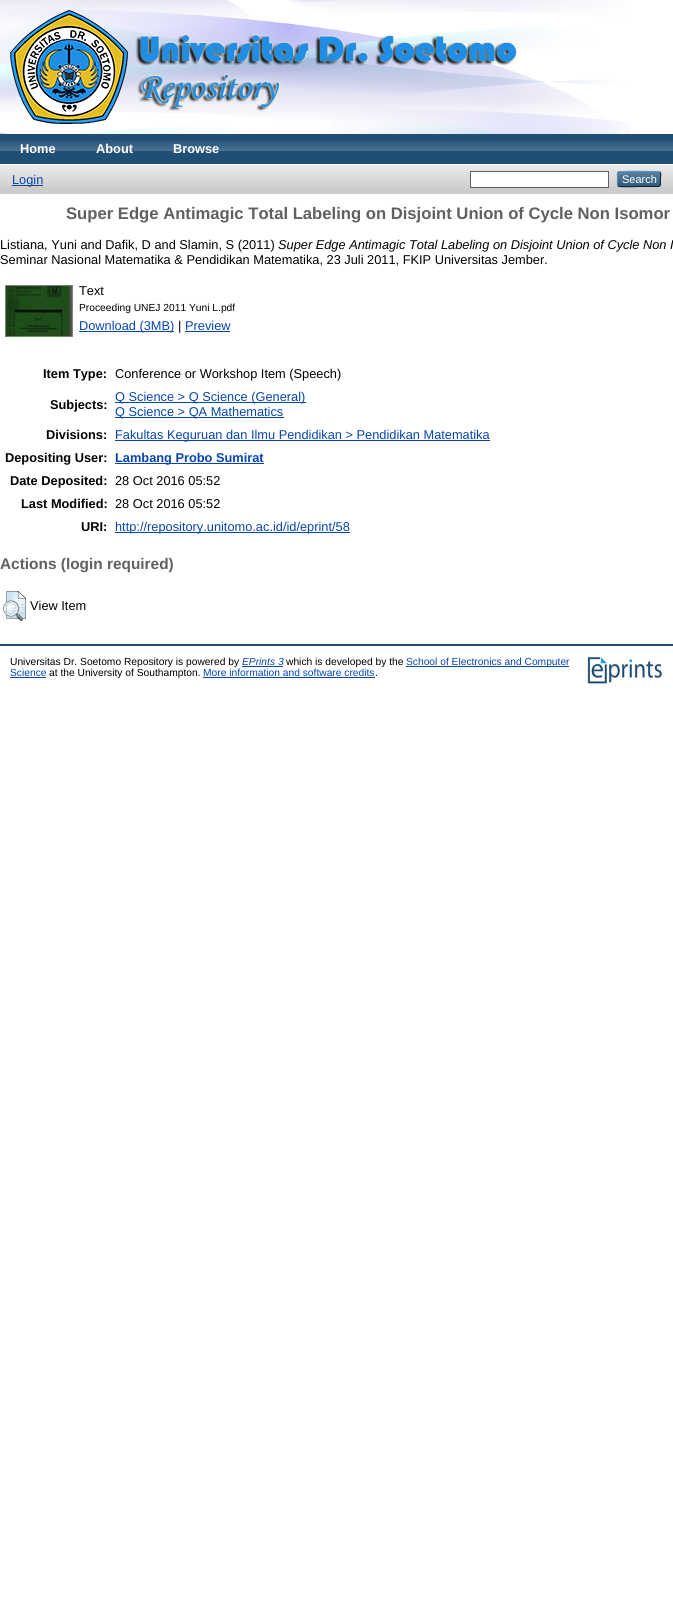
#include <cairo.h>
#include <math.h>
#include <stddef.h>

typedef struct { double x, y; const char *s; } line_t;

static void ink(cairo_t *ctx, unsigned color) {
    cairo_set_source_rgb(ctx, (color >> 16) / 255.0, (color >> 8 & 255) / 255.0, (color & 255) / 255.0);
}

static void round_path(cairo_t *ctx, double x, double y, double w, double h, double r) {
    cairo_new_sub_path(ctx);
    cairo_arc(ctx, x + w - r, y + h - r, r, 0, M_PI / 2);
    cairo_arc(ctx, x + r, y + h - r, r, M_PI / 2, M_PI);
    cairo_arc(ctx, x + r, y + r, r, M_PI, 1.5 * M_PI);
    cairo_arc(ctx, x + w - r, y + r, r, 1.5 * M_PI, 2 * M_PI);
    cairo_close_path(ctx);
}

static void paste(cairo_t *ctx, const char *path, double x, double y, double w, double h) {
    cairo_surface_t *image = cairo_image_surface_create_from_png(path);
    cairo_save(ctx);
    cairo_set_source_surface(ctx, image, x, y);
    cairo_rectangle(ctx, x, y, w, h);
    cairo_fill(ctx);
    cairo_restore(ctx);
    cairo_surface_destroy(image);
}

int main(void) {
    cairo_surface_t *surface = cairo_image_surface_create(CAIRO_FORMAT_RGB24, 673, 1612);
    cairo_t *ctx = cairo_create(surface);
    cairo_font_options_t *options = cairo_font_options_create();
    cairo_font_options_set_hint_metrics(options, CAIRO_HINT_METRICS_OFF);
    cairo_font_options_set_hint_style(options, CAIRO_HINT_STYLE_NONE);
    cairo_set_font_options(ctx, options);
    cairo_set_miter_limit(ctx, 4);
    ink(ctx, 0xFFFFFF);
    cairo_paint(ctx);
    paste(ctx, "media/1.png", 0, 0, 630, 134);
    paste(ctx, "media/2.png", 10, 10, 508, 114);
    ink(ctx, 0x204F76);
    cairo_rectangle(ctx, 0, 134, 673, 30);
    cairo_fill(ctx);
    paste(ctx, "media/3.png", 0, 140, 673, 11);
    cairo_select_font_face(ctx, "Liberation Sans", CAIRO_FONT_SLANT_NORMAL, CAIRO_FONT_WEIGHT_BOLD);
    cairo_set_font_size(ctx, 12.8);
    ink(ctx, 0xFFFFFF);
    {
        static const line_t items[] = {
            {20, 153, "Home"},
            {96, 153, "About"},
            {173, 153, "Browse"},
        };
        for (size_t i = 0; i < sizeof items / sizeof *items; i++) {
            cairo_move_to(ctx, items[i].x, items[i].y);
            cairo_show_text(ctx, items[i].s);
        }
    }
    ink(ctx, 0xCCCCCC);
    cairo_rectangle(ctx, 0, 165, 673, 29);
    cairo_fill(ctx);
    paste(ctx, "media/4.png", 0, 165, 673, 22);
    ink(ctx, 0x0645AD);
    cairo_rectangle(ctx, 12, 185, 31, 1);
    cairo_fill(ctx);
    cairo_select_font_face(ctx, "Liberation Sans", CAIRO_FONT_SLANT_NORMAL, CAIRO_FONT_WEIGHT_NORMAL);
    cairo_move_to(ctx, 12, 184);
    cairo_show_text(ctx, "Login");
    ink(ctx, 0xFFFFFF);
    cairo_rectangle(ctx, 470.5, 171.5, 138, 16);
    cairo_fill_preserve(ctx);
    ink(ctx, 0x606060);
    cairo_set_line_width(ctx, 1);
    cairo_stroke(ctx);
    ink(ctx, 0x1F4F76);
    round_path(ctx, 617, 171, 44, 16, 3);
    cairo_fill(ctx);
    paste(ctx, "media/5.png", 617, 171, 44, 16);
    cairo_new_path(ctx);
    cairo_move_to(ctx, 618, 172);
    cairo_curve_to(ctx, 619.5, 171, 658.5, 171, 660, 172);
    ink(ctx, 0x5B97C7);
    cairo_stroke(ctx);
    cairo_new_path(ctx);
    cairo_move_to(ctx, 660, 172);
    cairo_curve_to(ctx, 661.5, 174, 660.5, 177, 660.5, 179);
    cairo_curve_to(ctx, 660.5, 187.5, 661, 186.5, 651.5, 186.5);
    cairo_line_to(ctx, 639, 186.5);
    cairo_curve_to(ctx, 636, 186.5, 620, 187.5, 618, 186);
    ink(ctx, 0x0D2131);
    cairo_stroke(ctx);
    cairo_new_path(ctx);
    cairo_move_to(ctx, 618, 186);
    cairo_curve_to(ctx, 617, 184.5, 617.5, 180.5, 617.5, 179);
    cairo_curve_to(ctx, 617.5, 177.5, 617, 173.5, 618, 172);
    ink(ctx, 0x5287B3);
    cairo_stroke(ctx);
    cairo_set_font_size(ctx, 11);
    ink(ctx, 0xFFFFFF);
    cairo_move_to(ctx, 622, 183);
    cairo_show_text(ctx, "Search");
    cairo_select_font_face(ctx, "Liberation Sans", CAIRO_FONT_SLANT_NORMAL, CAIRO_FONT_WEIGHT_BOLD);
    cairo_set_font_size(ctx, 16.65);
    ink(ctx, 0x606060);
    cairo_move_to(ctx, 66, 219);
    cairo_show_text(ctx, "Super Edge Antimagic Total Labeling on Disjoint Union of Cycle Non Isomor");
    cairo_select_font_face(ctx, "Liberation Sans", CAIRO_FONT_SLANT_NORMAL, CAIRO_FONT_WEIGHT_NORMAL);
    cairo_set_font_size(ctx, 12.8);
    ink(ctx, 0x000000);
    cairo_move_to(ctx, 0, 249);
    cairo_show_text(ctx, "Listiana, Yuni and Dafik, D and Slamin, S (2011)");
    cairo_select_font_face(ctx, "Liberation Sans", CAIRO_FONT_SLANT_ITALIC, CAIRO_FONT_WEIGHT_NORMAL);
    cairo_move_to(ctx, 278, 249);
    cairo_show_text(ctx, "Super Edge Antimagic Total Labeling on Disjoint Union of Cycle Non I");
    cairo_select_font_face(ctx, "Liberation Sans", CAIRO_FONT_SLANT_NORMAL, CAIRO_FONT_WEIGHT_NORMAL);
    cairo_move_to(ctx, 0, 264);
    cairo_show_text(ctx, "Seminar Nasional Matematika & Pendidikan Matematika, 23 Juli 2011, FKIP Universitas Jember.");
    paste(ctx, "media/6.png", 5, 285, 68, 52);
    cairo_move_to(ctx, 79, 295);
    cairo_show_text(ctx, "Text");
    cairo_set_font_size(ctx, 10.25);
    cairo_move_to(ctx, 79, 311);
    cairo_show_text(ctx, "Proceeding UNEJ 2011 Yuni L.pdf");
    ink(ctx, 0x0645AD);
    cairo_rectangle(ctx, 79, 331, 95, 1);
    cairo_fill(ctx);
    cairo_set_font_size(ctx, 12.8);
    cairo_move_to(ctx, 79, 330);
    cairo_show_text(ctx, "Download (3MB)");
    ink(ctx, 0x000000);
    cairo_move_to(ctx, 178, 330);
    cairo_show_text(ctx, "|");
    ink(ctx, 0x0645AD);
    cairo_move_to(ctx, 185, 330);
    cairo_show_text(ctx, "Preview");
    cairo_rectangle(ctx, 185, 331, 45, 1);
    cairo_fill(ctx);
    cairo_select_font_face(ctx, "Liberation Sans", CAIRO_FONT_SLANT_NORMAL, CAIRO_FONT_WEIGHT_BOLD);
    ink(ctx, 0x000000);
    cairo_move_to(ctx, 43, 378);
    cairo_show_text(ctx, "Item Type:");
    cairo_select_font_face(ctx, "Liberation Sans", CAIRO_FONT_SLANT_NORMAL, CAIRO_FONT_WEIGHT_NORMAL);
    cairo_move_to(ctx, 115, 378);
    cairo_show_text(ctx, "Conference or Workshop Item (Speech)");
    cairo_select_font_face(ctx, "Liberation Sans", CAIRO_FONT_SLANT_NORMAL, CAIRO_FONT_WEIGHT_BOLD);
    cairo_move_to(ctx, 50, 409);
    cairo_show_text(ctx, "Subjects:");
    ink(ctx, 0x0645AD);
    cairo_rectangle(ctx, 115, 402, 191, 1);
    cairo_fill(ctx);
    cairo_select_font_face(ctx, "Liberation Sans", CAIRO_FONT_SLANT_NORMAL, CAIRO_FONT_WEIGHT_NORMAL);
    cairo_move_to(ctx, 115, 401);
    cairo_show_text(ctx, "Q Science > Q Science (General)");
    cairo_rectangle(ctx, 115, 417, 169, 1);
    cairo_fill(ctx);
    cairo_move_to(ctx, 115, 416);
    cairo_show_text(ctx, "Q Science > QA Mathematics");
    cairo_select_font_face(ctx, "Liberation Sans", CAIRO_FONT_SLANT_NORMAL, CAIRO_FONT_WEIGHT_BOLD);
    ink(ctx, 0x000000);
    cairo_move_to(ctx, 46, 439);
    cairo_show_text(ctx, "Divisions:");
    ink(ctx, 0x0645AD);
    cairo_rectangle(ctx, 115, 440, 375, 1);
    cairo_fill(ctx);
    cairo_select_font_face(ctx, "Liberation Sans", CAIRO_FONT_SLANT_NORMAL, CAIRO_FONT_WEIGHT_NORMAL);
    cairo_move_to(ctx, 115, 439);
    cairo_show_text(ctx, "Fakultas Keguruan dan Ilmu Pendidikan > Pendidikan Matematika");
    cairo_select_font_face(ctx, "Liberation Sans", CAIRO_FONT_SLANT_NORMAL, CAIRO_FONT_WEIGHT_BOLD);
    ink(ctx, 0x000000);
    cairo_move_to(ctx, 5, 462);
    cairo_show_text(ctx, "Depositing User:");
    ink(ctx, 0x0645AD);
    cairo_rectangle(ctx, 115, 463, 149, 1);
    cairo_fill(ctx);
    cairo_move_to(ctx, 115, 462);
    cairo_show_text(ctx, "Lambang Probo Sumirat");
    ink(ctx, 0x000000);
    cairo_move_to(ctx, 10, 485);
    cairo_show_text(ctx, "Date Deposited:");
    cairo_select_font_face(ctx, "Liberation Sans", CAIRO_FONT_SLANT_NORMAL, CAIRO_FONT_WEIGHT_NORMAL);
    cairo_move_to(ctx, 115, 485);
    cairo_show_text(ctx, "28 Oct 2016 05:52");
    cairo_select_font_face(ctx, "Liberation Sans", CAIRO_FONT_SLANT_NORMAL, CAIRO_FONT_WEIGHT_BOLD);
    cairo_move_to(ctx, 21, 508);
    cairo_show_text(ctx, "Last Modified:");
    cairo_select_font_face(ctx, "Liberation Sans", CAIRO_FONT_SLANT_NORMAL, CAIRO_FONT_WEIGHT_NORMAL);
    cairo_move_to(ctx, 115, 508);
    cairo_show_text(ctx, "28 Oct 2016 05:52");
    cairo_select_font_face(ctx, "Liberation Sans", CAIRO_FONT_SLANT_NORMAL, CAIRO_FONT_WEIGHT_BOLD);
    cairo_move_to(ctx, 81, 531);
    cairo_show_text(ctx, "URI:");
    ink(ctx, 0x0645AD);
    cairo_rectangle(ctx, 115, 532, 235, 1);
    cairo_fill(ctx);
    cairo_select_font_face(ctx, "Liberation Sans", CAIRO_FONT_SLANT_NORMAL, CAIRO_FONT_WEIGHT_NORMAL);
    cairo_move_to(ctx, 115, 531);
    cairo_show_text(ctx, "http://repository.unitomo.ac.id/id/eprint/58");
    cairo_select_font_face(ctx, "Liberation Sans", CAIRO_FONT_SLANT_NORMAL, CAIRO_FONT_WEIGHT_BOLD);
    cairo_set_font_size(ctx, 15.4);
    ink(ctx, 0x606060);
    cairo_move_to(ctx, 0, 569);
    cairo_show_text(ctx, "Actions (login required)");
    paste(ctx, "media/7.png", 3, 591, 23, 30);
    cairo_select_font_face(ctx, "Liberation Sans", CAIRO_FONT_SLANT_NORMAL, CAIRO_FONT_WEIGHT_NORMAL);
    cairo_set_font_size(ctx, 12.8);
    ink(ctx, 0x000000);
    cairo_move_to(ctx, 30, 610);
    cairo_show_text(ctx, "View Item");
    ink(ctx, 0x204F76);
    cairo_rectangle(ctx, 0, 644, 673, 2);
    cairo_fill(ctx);
    cairo_set_font_size(ctx, 10.25);
    ink(ctx, 0x000000);
    cairo_move_to(ctx, 10, 665);
    cairo_show_text(ctx, "Universitas Dr. Soetomo Repository is powered by");
    cairo_select_font_face(ctx, "Liberation Sans", CAIRO_FONT_SLANT_ITALIC, CAIRO_FONT_WEIGHT_NORMAL);
    ink(ctx, 0x0645AD);
    cairo_move_to(ctx, 242, 665);
    cairo_show_text(ctx, "EPrints 3");
    cairo_rectangle(ctx, 242, 666, 41, 1);
    cairo_fill(ctx);
    cairo_select_font_face(ctx, "Liberation Sans", CAIRO_FONT_SLANT_NORMAL, CAIRO_FONT_WEIGHT_NORMAL);
    ink(ctx, 0x000000);
    cairo_move_to(ctx, 286, 665);
    cairo_show_text(ctx, "which is developed by the");
    ink(ctx, 0x0645AD);
    cairo_rectangle(ctx, 406, 666, 163, 1);
    cairo_fill(ctx);
    cairo_move_to(ctx, 406, 665);
    cairo_show_text(ctx, "School of Electronics and Computer");
    cairo_move_to(ctx, 10, 676);
    cairo_show_text(ctx, "Science");
    cairo_rectangle(ctx, 10, 677, 36, 1);
    cairo_fill(ctx);
    ink(ctx, 0x000000);
    cairo_move_to(ctx, 49, 676);
    cairo_show_text(ctx, "at the University of Southampton.");
    ink(ctx, 0x0645AD);
    cairo_move_to(ctx, 203, 676);
    cairo_show_text(ctx, "More information and software credits");
    cairo_rectangle(ctx, 203, 677, 172, 1);
    cairo_fill(ctx);
    ink(ctx, 0x000000);
    cairo_move_to(ctx, 375, 676);
    cairo_show_text(ctx, ".");
    paste(ctx, "media/8.png", 586, 657, 76, 28);
    cairo_surface_write_to_png(surface, "image.png");
    cairo_font_options_destroy(options);
    cairo_destroy(ctx);
    cairo_surface_destroy(surface);
    return 0;
}
